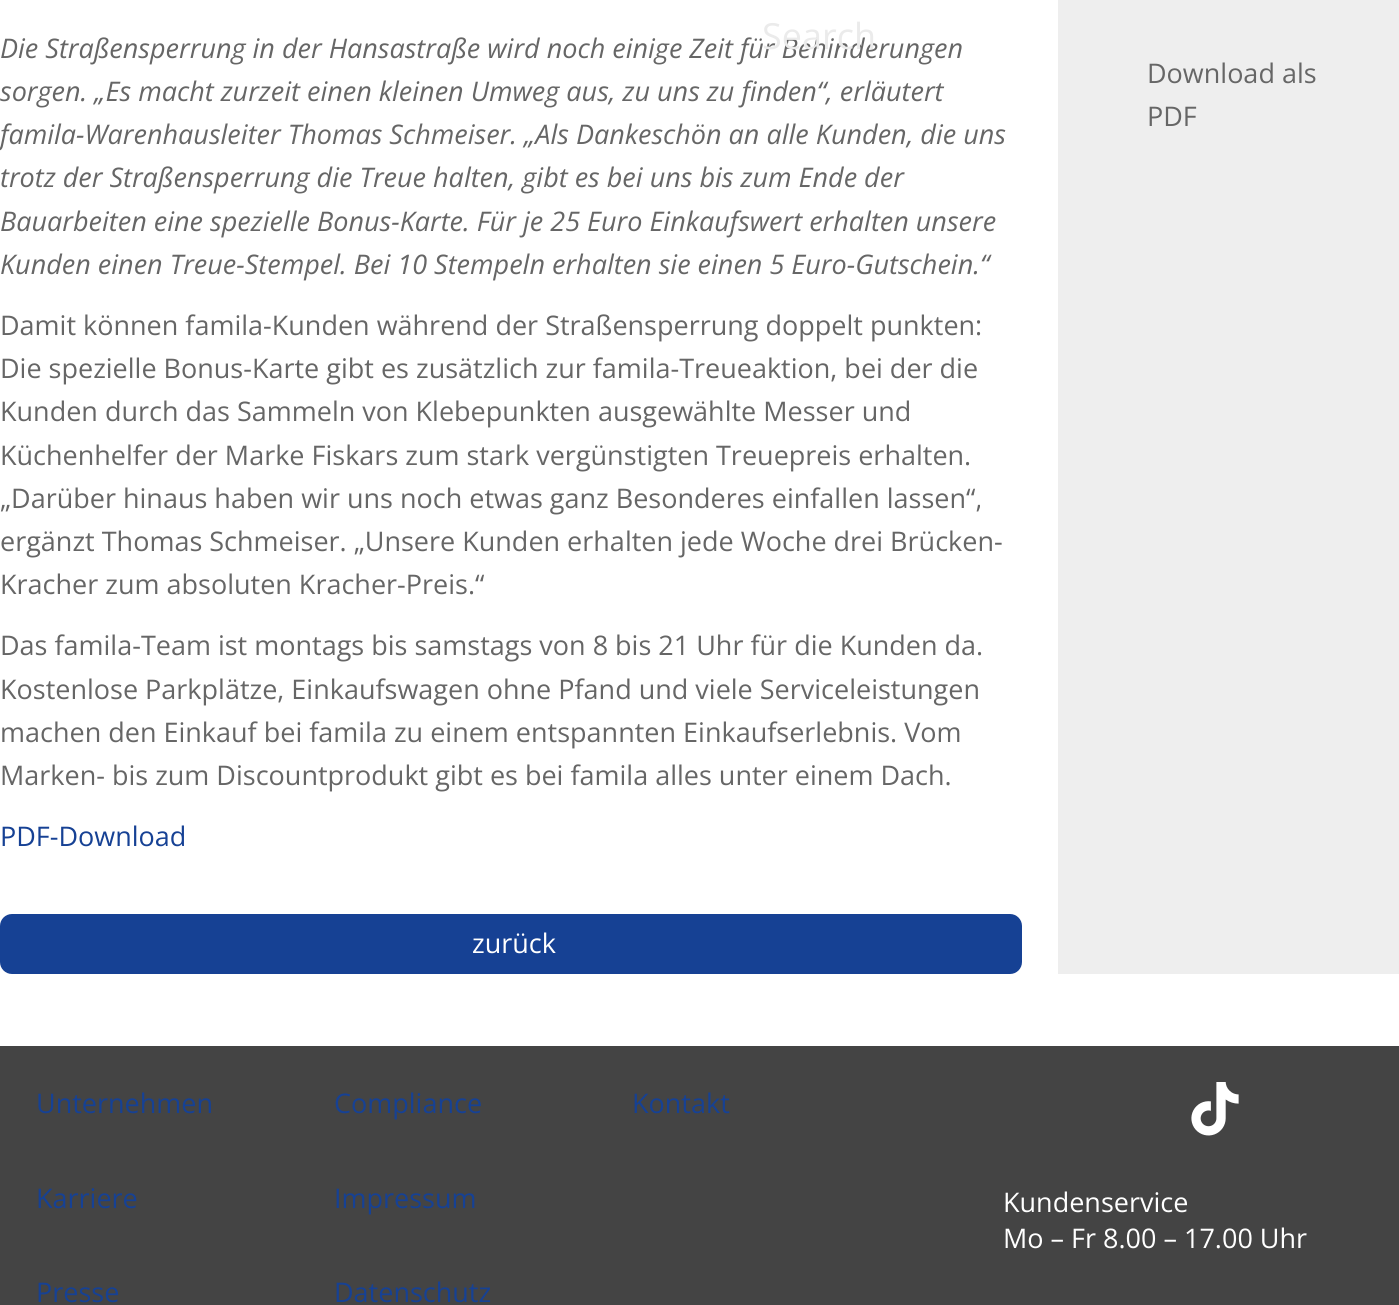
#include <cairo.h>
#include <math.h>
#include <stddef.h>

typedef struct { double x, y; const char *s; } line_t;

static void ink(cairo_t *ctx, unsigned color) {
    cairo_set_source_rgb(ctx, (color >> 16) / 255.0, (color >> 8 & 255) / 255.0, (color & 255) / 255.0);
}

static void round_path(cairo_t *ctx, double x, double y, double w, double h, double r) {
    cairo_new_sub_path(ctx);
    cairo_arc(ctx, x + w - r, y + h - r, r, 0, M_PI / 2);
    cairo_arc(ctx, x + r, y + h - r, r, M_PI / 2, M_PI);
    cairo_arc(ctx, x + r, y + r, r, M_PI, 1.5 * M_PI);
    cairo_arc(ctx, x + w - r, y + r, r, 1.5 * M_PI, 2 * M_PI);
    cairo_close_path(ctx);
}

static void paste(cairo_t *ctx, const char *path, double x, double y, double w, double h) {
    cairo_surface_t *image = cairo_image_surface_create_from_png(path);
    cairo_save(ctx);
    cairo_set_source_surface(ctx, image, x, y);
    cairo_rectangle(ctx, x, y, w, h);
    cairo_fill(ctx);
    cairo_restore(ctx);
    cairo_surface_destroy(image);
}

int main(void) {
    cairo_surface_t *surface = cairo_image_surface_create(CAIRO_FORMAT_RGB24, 1399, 1305);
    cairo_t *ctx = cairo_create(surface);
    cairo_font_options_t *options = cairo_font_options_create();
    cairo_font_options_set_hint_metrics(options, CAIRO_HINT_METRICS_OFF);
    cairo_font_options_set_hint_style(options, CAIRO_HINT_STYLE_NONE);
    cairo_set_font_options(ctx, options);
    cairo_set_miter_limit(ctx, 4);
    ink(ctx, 0xFFFFFF);
    cairo_paint(ctx);
    cairo_select_font_face(ctx, "Open Sans", CAIRO_FONT_SLANT_ITALIC, CAIRO_FONT_WEIGHT_NORMAL);
    cairo_set_font_size(ctx, 27);
    ink(ctx, 0x666666);
    cairo_move_to(ctx, 0, 58);
    cairo_show_text(ctx, "Die Straßensperrung in der Hansastraße wird noch einige Zeit für Behinderungen");
    cairo_select_font_face(ctx, "Open Sans", CAIRO_FONT_SLANT_NORMAL, CAIRO_FONT_WEIGHT_NORMAL);
    cairo_set_font_size(ctx, 36);
    ink(ctx, 0xEBEBEB);
    cairo_move_to(ctx, 762, 49);
    cairo_show_text(ctx, "Search");
    cairo_select_font_face(ctx, "Open Sans", CAIRO_FONT_SLANT_ITALIC, CAIRO_FONT_WEIGHT_NORMAL);
    cairo_set_font_size(ctx, 27);
    ink(ctx, 0x666666);
    {
        static const line_t items[] = {
            {0, 101, "sorgen. „Es macht zurzeit einen kleinen Umweg aus, zu uns zu finden“, erläutert"},
            {0, 144, "famila-Warenhausleiter Thomas Schmeiser. „Als Dankeschön an alle Kunden, die uns"},
            {0, 187, "trotz der Straßensperrung die Treue halten, gibt es bei uns bis zum Ende der"},
            {0, 231, "Bauarbeiten eine spezielle Bonus-Karte. Für je 25 Euro Einkaufswert erhalten unsere"},
            {0, 274, "Kunden einen Treue-Stempel. Bei 10 Stempeln erhalten sie einen 5 Euro-Gutschein.“"},
        };
        for (size_t i = 0; i < sizeof items / sizeof *items; i++) {
            cairo_move_to(ctx, items[i].x, items[i].y);
            cairo_show_text(ctx, items[i].s);
        }
    }
    cairo_select_font_face(ctx, "Open Sans", CAIRO_FONT_SLANT_NORMAL, CAIRO_FONT_WEIGHT_NORMAL);
    {
        static const line_t items[] = {
            {0, 335, "Damit können famila-Kunden während der Straßensperrung doppelt punkten:"},
            {0, 378, "Die spezielle Bonus-Karte gibt es zusätzlich zur famila-Treueaktion, bei der die"},
            {0, 421, "Kunden durch das Sammeln von Klebepunkten ausgewählte Messer und"},
            {0, 465, "Küchenhelfer der Marke Fiskars zum stark vergünstigten Treuepreis erhalten."},
            {0, 508, "„Darüber hinaus haben wir uns noch etwas ganz Besonderes einfallen lassen“,"},
            {0, 551, "ergänzt Thomas Schmeiser. „Unsere Kunden erhalten jede Woche drei Brücken-"},
            {0, 594, "Kracher zum absoluten Kracher-Preis.“"},
            {0, 655, "Das famila-Team ist montags bis samstags von 8 bis 21 Uhr für die Kunden da."},
            {0, 699, "Kostenlose Parkplätze, Einkaufswagen ohne Pfand und viele Serviceleistungen"},
            {0, 742, "machen den Einkauf bei famila zu einem entspannten Einkaufserlebnis. Vom"},
            {0, 785, "Marken- bis zum Discountprodukt gibt es bei famila alles unter einem Dach."},
        };
        for (size_t i = 0; i < sizeof items / sizeof *items; i++) {
            cairo_move_to(ctx, items[i].x, items[i].y);
            cairo_show_text(ctx, items[i].s);
        }
    }
    ink(ctx, 0x164194);
    cairo_move_to(ctx, 0, 846);
    cairo_show_text(ctx, "PDF-Download");
    round_path(ctx, 0, 914, 1022, 60, 12);
    cairo_fill(ctx);
    ink(ctx, 0xFFFFFF);
    cairo_move_to(ctx, 472, 953);
    cairo_show_text(ctx, "zurück");
    ink(ctx, 0xEEEEEE);
    cairo_rectangle(ctx, 1058, 0, 341, 974);
    cairo_fill(ctx);
    ink(ctx, 0x666666);
    cairo_move_to(ctx, 1147, 83);
    cairo_show_text(ctx, "Download als");
    cairo_move_to(ctx, 1147, 126);
    cairo_show_text(ctx, "PDF");
    ink(ctx, 0x444444);
    cairo_rectangle(ctx, 0, 1046, 1399, 259);
    cairo_fill(ctx);
    ink(ctx, 0x164194);
    {
        static const line_t items[] = {
            {36, 1113, "Unternehmen"},
            {36, 1208, "Karriere"},
            {36, 1302, "Presse"},
            {334, 1113, "Compliance"},
            {334, 1208, "Impressum"},
            {334, 1302, "Datenschutz"},
            {632, 1113, "Kontakt"},
        };
        for (size_t i = 0; i < sizeof items / sizeof *items; i++) {
            cairo_move_to(ctx, items[i].x, items[i].y);
            cairo_show_text(ctx, items[i].s);
        }
    }
    paste(ctx, "media/1.png", 1191, 1082, 48, 54);
    ink(ctx, 0xFFFFFF);
    cairo_move_to(ctx, 1003, 1212);
    cairo_show_text(ctx, "Kundenservice");
    cairo_move_to(ctx, 1003, 1248);
    cairo_show_text(ctx, "Mo – Fr 8.00 – 17.00 Uhr");
    cairo_surface_write_to_png(surface, "image.png");
    cairo_font_options_destroy(options);
    cairo_destroy(ctx);
    cairo_surface_destroy(surface);
    return 0;
}
